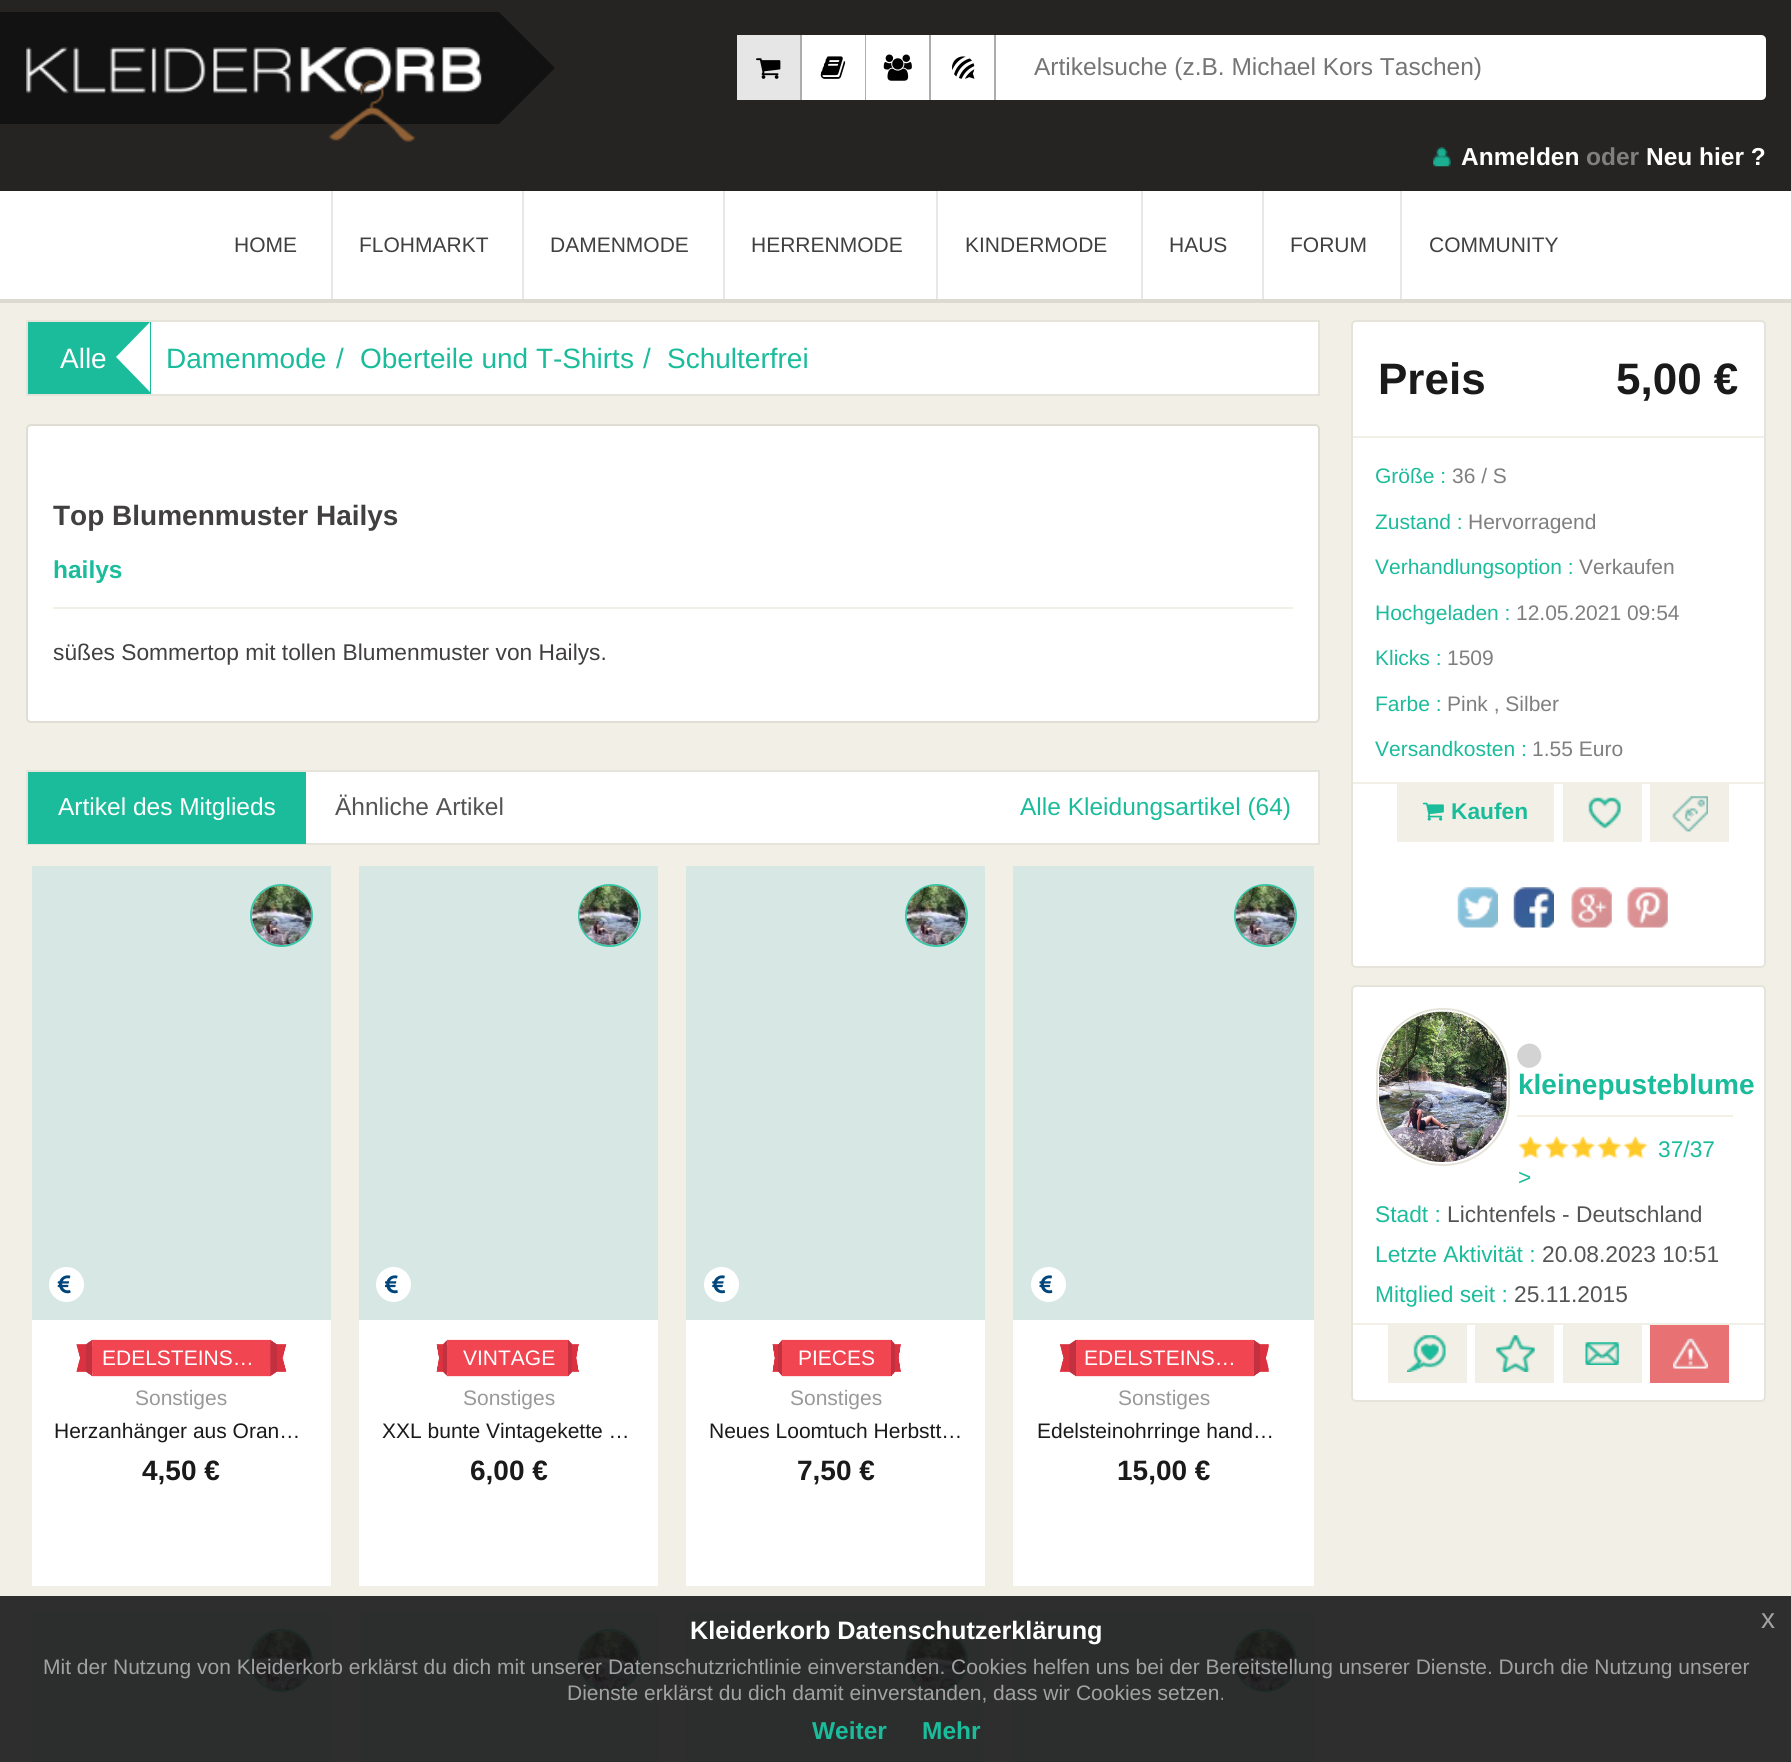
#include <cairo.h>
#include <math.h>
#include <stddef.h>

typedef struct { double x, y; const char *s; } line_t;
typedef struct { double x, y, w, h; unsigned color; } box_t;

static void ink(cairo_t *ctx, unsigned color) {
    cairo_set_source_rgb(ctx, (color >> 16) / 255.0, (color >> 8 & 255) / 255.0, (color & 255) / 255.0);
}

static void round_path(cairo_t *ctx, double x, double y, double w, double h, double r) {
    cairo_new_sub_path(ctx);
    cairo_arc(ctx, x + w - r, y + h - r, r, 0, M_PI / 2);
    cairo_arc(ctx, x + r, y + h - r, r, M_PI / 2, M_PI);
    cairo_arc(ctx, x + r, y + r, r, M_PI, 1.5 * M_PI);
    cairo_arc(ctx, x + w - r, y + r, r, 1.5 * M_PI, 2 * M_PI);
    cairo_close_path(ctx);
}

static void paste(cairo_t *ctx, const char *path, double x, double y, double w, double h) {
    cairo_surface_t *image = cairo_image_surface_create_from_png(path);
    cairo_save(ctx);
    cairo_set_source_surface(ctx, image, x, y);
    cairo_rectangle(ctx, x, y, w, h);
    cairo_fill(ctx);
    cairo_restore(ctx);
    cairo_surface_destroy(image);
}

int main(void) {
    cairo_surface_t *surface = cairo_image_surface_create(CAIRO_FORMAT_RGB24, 1791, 1762);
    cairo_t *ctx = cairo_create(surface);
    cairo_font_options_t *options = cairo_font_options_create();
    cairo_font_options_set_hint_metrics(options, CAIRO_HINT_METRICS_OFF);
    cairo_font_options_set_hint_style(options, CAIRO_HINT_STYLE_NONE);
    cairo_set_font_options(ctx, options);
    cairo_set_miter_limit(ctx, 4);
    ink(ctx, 0xF2F0E6);
    cairo_paint(ctx);
    {
        static const box_t items[] = {
            {0, 1596, 1791, 166, 0x2F2E2E},
            {0, 0, 1791, 191, 0x252423},
            {0, 12, 499, 112, 0x121212},
        };
        for (size_t i = 0; i < sizeof items / sizeof *items; i++) {
            ink(ctx, items[i].color);
            cairo_rectangle(ctx, items[i].x, items[i].y, items[i].w, items[i].h);
            cairo_fill(ctx);
        }
    }
    paste(ctx, "media/1.png", 26, 47, 456, 95);
    cairo_new_path(ctx);
    cairo_move_to(ctx, 499, 124);
    cairo_line_to(ctx, 499, 12);
    cairo_line_to(ctx, 555, 68);
    cairo_close_path(ctx);
    cairo_fill(ctx);
    ink(ctx, 0xE6E6E6);
    cairo_rectangle(ctx, 737, 35, 63, 65);
    cairo_fill(ctx);
    ink(ctx, 0xADADAD);
    cairo_rectangle(ctx, 800, 35, 2, 65);
    cairo_fill(ctx);
    paste(ctx, "media/2.png", 756, 58, 25, 21);
    ink(ctx, 0xFFFFFF);
    cairo_rectangle(ctx, 802, 35, 63, 65);
    cairo_fill(ctx);
    ink(ctx, 0xADADAD);
    cairo_rectangle(ctx, 865, 35, 1, 65);
    cairo_fill(ctx);
    paste(ctx, "media/3.png", 820, 56, 26, 23);
    ink(ctx, 0xFFFFFF);
    cairo_rectangle(ctx, 866, 35, 63, 65);
    cairo_fill(ctx);
    ink(ctx, 0xADADAD);
    cairo_rectangle(ctx, 929, 35, 2, 65);
    cairo_fill(ctx);
    paste(ctx, "media/4.png", 883, 54, 29, 27);
    ink(ctx, 0xFFFFFF);
    cairo_rectangle(ctx, 931, 35, 63, 65);
    cairo_fill(ctx);
    ink(ctx, 0xADADAD);
    cairo_rectangle(ctx, 994, 35, 2, 65);
    cairo_fill(ctx);
    paste(ctx, "media/5.png", 952, 56, 23, 23);
    ink(ctx, 0xFFFFFF);
    cairo_new_path(ctx);
    cairo_move_to(ctx, 996, 35);
    cairo_line_to(ctx, 1761, 35);
    cairo_curve_to(ctx, 1764, 35, 1766, 37, 1766, 40);
    cairo_line_to(ctx, 1766, 95);
    cairo_curve_to(ctx, 1766, 98, 1764, 100, 1761, 100);
    cairo_line_to(ctx, 996, 100);
    cairo_close_path(ctx);
    cairo_fill(ctx);
    cairo_select_font_face(ctx, "Liberation Sans", CAIRO_FONT_SLANT_NORMAL, CAIRO_FONT_WEIGHT_NORMAL);
    cairo_set_font_size(ctx, 24.5);
    ink(ctx, 0x757575);
    cairo_move_to(ctx, 1034, 75);
    cairo_show_text(ctx, "Artikelsuche (z.B. Michael Kors Taschen)");
    paste(ctx, "media/6.png", 1433, 147, 18, 20);
    cairo_select_font_face(ctx, "Liberation Sans", CAIRO_FONT_SLANT_NORMAL, CAIRO_FONT_WEIGHT_BOLD);
    ink(ctx, 0xFFFFFF);
    cairo_move_to(ctx, 1461, 165);
    cairo_show_text(ctx, "Anmelden");
    ink(ctx, 0x7F7F7F);
    cairo_move_to(ctx, 1586, 165);
    cairo_show_text(ctx, "oder");
    ink(ctx, 0xFFFFFF);
    cairo_move_to(ctx, 1646, 165);
    cairo_show_text(ctx, "Neu hier ?");
    cairo_rectangle(ctx, 0, 191, 1791, 108);
    cairo_fill(ctx);
    ink(ctx, 0xDCDAD1);
    cairo_rectangle(ctx, 0, 299, 1791, 4);
    cairo_fill(ctx);
    cairo_select_font_face(ctx, "Liberation Sans", CAIRO_FONT_SLANT_NORMAL, CAIRO_FONT_WEIGHT_NORMAL);
    cairo_set_font_size(ctx, 21);
    ink(ctx, 0x413F3F);
    cairo_move_to(ctx, 234, 252);
    cairo_show_text(ctx, "HOME");
    ink(ctx, 0xE7E7E7);
    cairo_rectangle(ctx, 331, 191, 2, 108);
    cairo_fill(ctx);
    ink(ctx, 0x413F3F);
    cairo_move_to(ctx, 359, 252);
    cairo_show_text(ctx, "FLOHMARKT");
    ink(ctx, 0xE7E7E7);
    cairo_rectangle(ctx, 522, 191, 2, 108);
    cairo_fill(ctx);
    ink(ctx, 0x413F3F);
    cairo_move_to(ctx, 550, 252);
    cairo_show_text(ctx, "DAMENMODE");
    ink(ctx, 0xE7E7E7);
    cairo_rectangle(ctx, 723, 191, 2, 108);
    cairo_fill(ctx);
    ink(ctx, 0x413F3F);
    cairo_move_to(ctx, 751, 252);
    cairo_show_text(ctx, "HERRENMODE");
    ink(ctx, 0xE7E7E7);
    cairo_rectangle(ctx, 936, 191, 2, 108);
    cairo_fill(ctx);
    ink(ctx, 0x413F3F);
    cairo_move_to(ctx, 965, 252);
    cairo_show_text(ctx, "KINDERMODE");
    ink(ctx, 0xE7E7E7);
    cairo_rectangle(ctx, 1141, 191, 2, 108);
    cairo_fill(ctx);
    ink(ctx, 0x413F3F);
    cairo_move_to(ctx, 1169, 252);
    cairo_show_text(ctx, "HAUS");
    ink(ctx, 0xE7E7E7);
    cairo_rectangle(ctx, 1262, 191, 2, 108);
    cairo_fill(ctx);
    ink(ctx, 0x413F3F);
    cairo_move_to(ctx, 1290, 252);
    cairo_show_text(ctx, "FORUM");
    ink(ctx, 0xE7E7E7);
    cairo_rectangle(ctx, 1400, 191, 2, 108);
    cairo_fill(ctx);
    ink(ctx, 0x413F3F);
    cairo_move_to(ctx, 1429, 252);
    cairo_show_text(ctx, "COMMUNITY");
    ink(ctx, 0xFFFFFF);
    cairo_rectangle(ctx, 151, 322, 1167, 72);
    cairo_fill(ctx);
    cairo_rectangle(ctx, 27, 321, 1292, 74);
    ink(ctx, 0xE6E4DA);
    cairo_stroke(ctx);
    ink(ctx, 0x1BBC9B);
    cairo_rectangle(ctx, 28, 322, 123, 72);
    cairo_fill(ctx);
    cairo_set_font_size(ctx, 28);
    ink(ctx, 0xFFFFFF);
    cairo_move_to(ctx, 60, 368);
    cairo_show_text(ctx, "Alle");
    cairo_new_path(ctx);
    cairo_move_to(ctx, 150, 322);
    cairo_line_to(ctx, 150, 392);
    cairo_line_to(ctx, 116, 357);
    cairo_close_path(ctx);
    cairo_fill(ctx);
    ink(ctx, 0x1BBC9B);
    {
        static const line_t items[] = {
            {166, 368, "Damenmode"},
            {336, 368, "/"},
            {360, 368, "Oberteile und T-Shirts"},
            {643, 368, "/"},
            {667, 368, "Schulterfrei"},
        };
        for (size_t i = 0; i < sizeof items / sizeof *items; i++) {
            cairo_move_to(ctx, items[i].x, items[i].y);
            cairo_show_text(ctx, items[i].s);
        }
    }
    ink(ctx, 0xFFFFFF);
    round_path(ctx, 27, 425, 1292, 297, 4);
    cairo_fill_preserve(ctx);
    ink(ctx, 0xDFDDD4);
    cairo_stroke(ctx);
    ink(ctx, 0xF2F0E6);
    cairo_rectangle(ctx, 53, 607, 1240, 2);
    cairo_fill(ctx);
    cairo_select_font_face(ctx, "Liberation Sans", CAIRO_FONT_SLANT_NORMAL, CAIRO_FONT_WEIGHT_BOLD);
    ink(ctx, 0x413F3F);
    cairo_move_to(ctx, 53, 525);
    cairo_show_text(ctx, "Top Blumenmuster Hailys");
    cairo_set_font_size(ctx, 24.5);
    ink(ctx, 0x1BBC9B);
    cairo_move_to(ctx, 53, 578);
    cairo_show_text(ctx, "hailys");
    cairo_select_font_face(ctx, "Liberation Sans", CAIRO_FONT_SLANT_NORMAL, CAIRO_FONT_WEIGHT_NORMAL);
    cairo_set_font_size(ctx, 22.75);
    ink(ctx, 0x413F3F);
    cairo_move_to(ctx, 53, 660);
    cairo_show_text(ctx, "süßes Sommertop mit tollen Blumenmuster von Hailys.");
    ink(ctx, 0xFFFFFF);
    round_path(ctx, 1352, 321, 413, 646, 4);
    cairo_fill_preserve(ctx);
    ink(ctx, 0xE6E4DA);
    cairo_stroke(ctx);
    ink(ctx, 0xF2F0E6);
    cairo_rectangle(ctx, 1353, 436, 411, 2);
    cairo_fill(ctx);
    cairo_select_font_face(ctx, "Liberation Sans", CAIRO_FONT_SLANT_NORMAL, CAIRO_FONT_WEIGHT_BOLD);
    cairo_set_font_size(ctx, 44);
    ink(ctx, 0x1A1A1A);
    cairo_move_to(ctx, 1378, 394);
    cairo_show_text(ctx, "Preis");
    cairo_move_to(ctx, 1616, 394);
    cairo_show_text(ctx, "5,00 €");
    cairo_select_font_face(ctx, "Liberation Sans", CAIRO_FONT_SLANT_NORMAL, CAIRO_FONT_WEIGHT_NORMAL);
    cairo_set_font_size(ctx, 21);
    ink(ctx, 0x1BBC9B);
    cairo_move_to(ctx, 1375, 483);
    cairo_show_text(ctx, "Größe :");
    ink(ctx, 0x7F7F7F);
    cairo_move_to(ctx, 1452, 483);
    cairo_show_text(ctx, "36 / S");
    ink(ctx, 0x1BBC9B);
    cairo_move_to(ctx, 1375, 529);
    cairo_show_text(ctx, "Zustand :");
    ink(ctx, 0x7F7F7F);
    cairo_move_to(ctx, 1468, 529);
    cairo_show_text(ctx, "Hervorragend");
    ink(ctx, 0x1BBC9B);
    cairo_move_to(ctx, 1375, 574);
    cairo_show_text(ctx, "Verhandlungsoption :");
    ink(ctx, 0x7F7F7F);
    cairo_move_to(ctx, 1579, 574);
    cairo_show_text(ctx, "Verkaufen");
    ink(ctx, 0x1BBC9B);
    cairo_move_to(ctx, 1375, 620);
    cairo_show_text(ctx, "Hochgeladen :");
    ink(ctx, 0x7F7F7F);
    cairo_move_to(ctx, 1516, 620);
    cairo_show_text(ctx, "12.05.2021 09:54");
    ink(ctx, 0x1BBC9B);
    cairo_move_to(ctx, 1375, 665);
    cairo_show_text(ctx, "Klicks :");
    ink(ctx, 0x7F7F7F);
    cairo_move_to(ctx, 1447, 665);
    cairo_show_text(ctx, "1509");
    ink(ctx, 0x1BBC9B);
    cairo_move_to(ctx, 1375, 711);
    cairo_show_text(ctx, "Farbe :");
    ink(ctx, 0x7F7F7F);
    cairo_move_to(ctx, 1447, 711);
    cairo_show_text(ctx, "Pink , Silber");
    ink(ctx, 0x1BBC9B);
    cairo_move_to(ctx, 1375, 756);
    cairo_show_text(ctx, "Versandkosten :");
    ink(ctx, 0x7F7F7F);
    cairo_move_to(ctx, 1532, 756);
    cairo_show_text(ctx, "1.55 Euro");
    ink(ctx, 0xF2F0E6);
    cairo_rectangle(ctx, 1353, 782, 411, 2);
    cairo_fill(ctx);
    cairo_rectangle(ctx, 1397, 784, 157, 58);
    cairo_fill(ctx);
    paste(ctx, "media/7.png", 1422, 802, 22, 19);
    cairo_select_font_face(ctx, "Liberation Sans", CAIRO_FONT_SLANT_NORMAL, CAIRO_FONT_WEIGHT_BOLD);
    cairo_set_font_size(ctx, 22.75);
    ink(ctx, 0x1BBC9B);
    cairo_move_to(ctx, 1451, 819);
    cairo_show_text(ctx, "Kaufen");
    ink(ctx, 0xF2F0E6);
    cairo_rectangle(ctx, 1563, 784, 79, 58);
    cairo_fill(ctx);
    paste(ctx, "media/8.png", 1588, 797, 33, 32);
    cairo_rectangle(ctx, 1650, 784, 79, 58);
    cairo_fill(ctx);
    paste(ctx, "media/9.png", 1672, 796, 36, 36);
    paste(ctx, "media/10.png", 1457, 887, 41, 41);
    paste(ctx, "media/11.png", 1513, 887, 41, 41);
    paste(ctx, "media/12.png", 1571, 887, 41, 41);
    paste(ctx, "media/13.png", 1627, 887, 41, 41);
    ink(ctx, 0xFFFFFF);
    round_path(ctx, 1352, 986, 413, 415, 4);
    cairo_fill_preserve(ctx);
    ink(ctx, 0xE6E4DA);
    cairo_stroke(ctx);
    round_path(ctx, 1377, 1009, 132, 156, 66);
    cairo_stroke(ctx);
    paste(ctx, "media/14.png", 1379, 1011, 128, 151);
    ink(ctx, 0xD3D3D3);
    cairo_new_path(ctx);
    cairo_move_to(ctx, 1539.5, 1049.5);
    cairo_curve_to(ctx, 1547.5, 1063.5, 1527, 1075.5, 1519, 1062);
    cairo_curve_to(ctx, 1511, 1048, 1531.5, 1036, 1539.5, 1049.5);
    cairo_close_path(ctx);
    cairo_fill(ctx);
    cairo_set_font_size(ctx, 28);
    ink(ctx, 0x1BBC9B);
    cairo_move_to(ctx, 1518, 1094);
    cairo_show_text(ctx, "kleinepusteblume");
    ink(ctx, 0xF2F0E6);
    cairo_rectangle(ctx, 1517, 1115, 216, 2);
    cairo_fill(ctx);
    paste(ctx, "media/15.png", 1518, 1135, 25, 24);
    paste(ctx, "media/16.png", 1544, 1135, 25, 24);
    paste(ctx, "media/17.png", 1571, 1135, 24, 24);
    paste(ctx, "media/18.png", 1597, 1135, 24, 24);
    paste(ctx, "media/19.png", 1623, 1135, 25, 24);
    cairo_select_font_face(ctx, "Liberation Sans", CAIRO_FONT_SLANT_NORMAL, CAIRO_FONT_WEIGHT_NORMAL);
    cairo_set_font_size(ctx, 22.75);
    ink(ctx, 0x1BBC9B);
    {
        static const line_t items[] = {
            {1658, 1157, "37/37"},
            {1518, 1185, ">"},
            {1375, 1222, "Stadt :"},
        };
        for (size_t i = 0; i < sizeof items / sizeof *items; i++) {
            cairo_move_to(ctx, items[i].x, items[i].y);
            cairo_show_text(ctx, items[i].s);
        }
    }
    ink(ctx, 0x545454);
    cairo_move_to(ctx, 1447, 1222);
    cairo_show_text(ctx, "Lichtenfels - Deutschland");
    ink(ctx, 0x1BBC9B);
    cairo_move_to(ctx, 1375, 1262);
    cairo_show_text(ctx, "Letzte Aktivität :");
    ink(ctx, 0x545454);
    cairo_move_to(ctx, 1542, 1262);
    cairo_show_text(ctx, "20.08.2023 10:51");
    ink(ctx, 0x1BBC9B);
    cairo_move_to(ctx, 1375, 1302);
    cairo_show_text(ctx, "Mitglied seit :");
    ink(ctx, 0x545454);
    cairo_move_to(ctx, 1514, 1302);
    cairo_show_text(ctx, "25.11.2015");
    ink(ctx, 0xF2F0E6);
    cairo_rectangle(ctx, 1353, 1323, 411, 2);
    cairo_fill(ctx);
    cairo_rectangle(ctx, 1388, 1325, 79, 58);
    cairo_fill(ctx);
    paste(ctx, "media/20.png", 1407, 1335, 39, 37);
    cairo_rectangle(ctx, 1475, 1325, 79, 58);
    cairo_fill(ctx);
    paste(ctx, "media/21.png", 1496, 1335, 39, 37);
    cairo_rectangle(ctx, 1563, 1325, 79, 58);
    cairo_fill(ctx);
    paste(ctx, "media/22.png", 1585, 1342, 34, 23);
    ink(ctx, 0xE87174);
    cairo_rectangle(ctx, 1650, 1325, 79, 58);
    cairo_fill(ctx);
    paste(ctx, "media/23.png", 1673, 1338, 35, 31);
    ink(ctx, 0xFFFFFF);
    cairo_rectangle(ctx, 306, 772, 1012, 71);
    cairo_fill(ctx);
    cairo_rectangle(ctx, 27, 771, 1292, 73);
    ink(ctx, 0xE6E4DA);
    cairo_stroke(ctx);
    ink(ctx, 0x1BBC9B);
    cairo_rectangle(ctx, 28, 772, 278, 72);
    cairo_fill(ctx);
    cairo_set_font_size(ctx, 24.5);
    ink(ctx, 0xFFFFFF);
    cairo_move_to(ctx, 58, 815);
    cairo_show_text(ctx, "Artikel des Mitglieds");
    ink(ctx, 0x545454);
    cairo_move_to(ctx, 335, 815);
    cairo_show_text(ctx, "Ähnliche Artikel");
    ink(ctx, 0x1BBC9B);
    cairo_move_to(ctx, 1020, 815);
    cairo_show_text(ctx, "Alle Kleidungsartikel (64)");
    ink(ctx, 0xD6E7E4);
    cairo_rectangle(ctx, 32, 866, 299, 454);
    cairo_fill(ctx);
    ink(ctx, 0xFFFFFF);
    cairo_arc(ctx, 281.5, 915.5, 30.5, 0, 2 * M_PI);
    cairo_fill_preserve(ctx);
    ink(ctx, 0x37C7A9);
    cairo_stroke(ctx);
    paste(ctx, "media/24.png", 252, 885, 60, 60);
    ink(ctx, 0xFFFFFF);
    cairo_arc(ctx, 66.5, 1284.5, 16.5, 0, 2 * M_PI);
    cairo_fill_preserve(ctx);
    cairo_stroke(ctx);
    paste(ctx, "media/25.png", 57, 1275, 14, 19);
    cairo_rectangle(ctx, 32, 1320, 299, 266);
    cairo_fill(ctx);
    paste(ctx, "media/26.png", 76, 1339, 211, 38);
    cairo_set_font_size(ctx, 21);
    cairo_move_to(ctx, 102, 1365);
    cairo_show_text(ctx, "EDELSTEINS…");
    ink(ctx, 0x999999);
    cairo_move_to(ctx, 135, 1405);
    cairo_show_text(ctx, "Sonstiges");
    ink(ctx, 0x1A1A1A);
    cairo_move_to(ctx, 54, 1438);
    cairo_show_text(ctx, "Herzanhänger aus Oran…");
    cairo_select_font_face(ctx, "Liberation Sans", CAIRO_FONT_SLANT_NORMAL, CAIRO_FONT_WEIGHT_BOLD);
    cairo_set_font_size(ctx, 28);
    cairo_move_to(ctx, 142, 1480);
    cairo_show_text(ctx, "4,50 €");
    ink(ctx, 0xD6E7E4);
    cairo_rectangle(ctx, 359, 866, 299, 454);
    cairo_fill(ctx);
    ink(ctx, 0xFFFFFF);
    cairo_arc(ctx, 609.5, 915.5, 30.5, 0, 2 * M_PI);
    cairo_fill_preserve(ctx);
    ink(ctx, 0x37C7A9);
    cairo_stroke(ctx);
    paste(ctx, "media/27.png", 579, 885, 60, 60);
    ink(ctx, 0xFFFFFF);
    cairo_arc(ctx, 393.5, 1284.5, 16.5, 0, 2 * M_PI);
    cairo_fill_preserve(ctx);
    cairo_stroke(ctx);
    paste(ctx, "media/28.png", 385, 1275, 13, 19);
    cairo_rectangle(ctx, 359, 1320, 299, 266);
    cairo_fill(ctx);
    paste(ctx, "media/29.png", 436, 1339, 143, 38);
    cairo_select_font_face(ctx, "Liberation Sans", CAIRO_FONT_SLANT_NORMAL, CAIRO_FONT_WEIGHT_NORMAL);
    cairo_set_font_size(ctx, 21);
    cairo_move_to(ctx, 463, 1365);
    cairo_show_text(ctx, "VINTAGE");
    ink(ctx, 0x999999);
    cairo_move_to(ctx, 463, 1405);
    cairo_show_text(ctx, "Sonstiges");
    ink(ctx, 0x1A1A1A);
    cairo_move_to(ctx, 382, 1438);
    cairo_show_text(ctx, "XXL bunte Vintagekette …");
    cairo_select_font_face(ctx, "Liberation Sans", CAIRO_FONT_SLANT_NORMAL, CAIRO_FONT_WEIGHT_BOLD);
    cairo_set_font_size(ctx, 28);
    cairo_move_to(ctx, 470, 1480);
    cairo_show_text(ctx, "6,00 €");
    ink(ctx, 0xD6E7E4);
    cairo_rectangle(ctx, 686, 866, 299, 454);
    cairo_fill(ctx);
    ink(ctx, 0xFFFFFF);
    cairo_arc(ctx, 936.5, 915.5, 30.5, 0, 2 * M_PI);
    cairo_fill_preserve(ctx);
    ink(ctx, 0x37C7A9);
    cairo_stroke(ctx);
    paste(ctx, "media/30.png", 906, 885, 60, 60);
    ink(ctx, 0xFFFFFF);
    cairo_arc(ctx, 721.5, 1284.5, 16.5, 0, 2 * M_PI);
    cairo_fill_preserve(ctx);
    cairo_stroke(ctx);
    paste(ctx, "media/31.png", 712, 1275, 14, 19);
    cairo_rectangle(ctx, 686, 1320, 299, 266);
    cairo_fill(ctx);
    paste(ctx, "media/32.png", 772, 1339, 129, 38);
    cairo_select_font_face(ctx, "Liberation Sans", CAIRO_FONT_SLANT_NORMAL, CAIRO_FONT_WEIGHT_NORMAL);
    cairo_set_font_size(ctx, 21);
    cairo_move_to(ctx, 798, 1365);
    cairo_show_text(ctx, "PIECES");
    ink(ctx, 0x999999);
    cairo_move_to(ctx, 790, 1405);
    cairo_show_text(ctx, "Sonstiges");
    ink(ctx, 0x1A1A1A);
    cairo_move_to(ctx, 709, 1438);
    cairo_show_text(ctx, "Neues Loomtuch Herbstt…");
    cairo_select_font_face(ctx, "Liberation Sans", CAIRO_FONT_SLANT_NORMAL, CAIRO_FONT_WEIGHT_BOLD);
    cairo_set_font_size(ctx, 28);
    cairo_move_to(ctx, 797, 1480);
    cairo_show_text(ctx, "7,50 €");
    ink(ctx, 0xD6E7E4);
    cairo_rectangle(ctx, 1013, 866, 301, 454);
    cairo_fill(ctx);
    ink(ctx, 0xFFFFFF);
    cairo_arc(ctx, 1265.5, 915.5, 30.5, 0, 2 * M_PI);
    cairo_fill_preserve(ctx);
    ink(ctx, 0x37C7A9);
    cairo_stroke(ctx);
    paste(ctx, "media/33.png", 1235, 885, 60, 60);
    ink(ctx, 0xFFFFFF);
    cairo_arc(ctx, 1048.5, 1284.5, 16.5, 0, 2 * M_PI);
    cairo_fill_preserve(ctx);
    cairo_stroke(ctx);
    paste(ctx, "media/34.png", 1039, 1275, 14, 19);
    cairo_rectangle(ctx, 1013, 1320, 301, 266);
    cairo_fill(ctx);
    paste(ctx, "media/35.png", 1059, 1339, 210, 38);
    cairo_select_font_face(ctx, "Liberation Sans", CAIRO_FONT_SLANT_NORMAL, CAIRO_FONT_WEIGHT_NORMAL);
    cairo_set_font_size(ctx, 21);
    cairo_move_to(ctx, 1084, 1365);
    cairo_show_text(ctx, "EDELSTEINS…");
    ink(ctx, 0x999999);
    cairo_move_to(ctx, 1118, 1405);
    cairo_show_text(ctx, "Sonstiges");
    ink(ctx, 0x1A1A1A);
    cairo_move_to(ctx, 1037, 1438);
    cairo_show_text(ctx, "Edelsteinohrringe hand…");
    cairo_select_font_face(ctx, "Liberation Sans", CAIRO_FONT_SLANT_NORMAL, CAIRO_FONT_WEIGHT_BOLD);
    cairo_set_font_size(ctx, 28);
    cairo_move_to(ctx, 1117, 1480);
    cairo_show_text(ctx, "15,00 €");
    ink(ctx, 0x2C2E2D);
    cairo_rectangle(ctx, 32, 1612, 299, 150);
    cairo_fill(ctx);
    ink(ctx, 0x303030);
    cairo_arc(ctx, 281.5, 1660.5, 30.5, 0, 2 * M_PI);
    cairo_fill_preserve(ctx);
    ink(ctx, 0x1C2A27);
    cairo_stroke(ctx);
    paste(ctx, "media/36.png", 252, 1631, 60, 60);
    ink(ctx, 0x2C2E2D);
    cairo_rectangle(ctx, 359, 1612, 299, 150);
    cairo_fill(ctx);
    ink(ctx, 0x303030);
    cairo_arc(ctx, 609.5, 1660.5, 30.5, 0, 2 * M_PI);
    cairo_fill_preserve(ctx);
    ink(ctx, 0x1C2A27);
    cairo_stroke(ctx);
    paste(ctx, "media/37.png", 579, 1631, 60, 60);
    ink(ctx, 0x2C2E2D);
    cairo_rectangle(ctx, 686, 1612, 299, 150);
    cairo_fill(ctx);
    ink(ctx, 0x303030);
    cairo_arc(ctx, 936.5, 1660.5, 30.5, 0, 2 * M_PI);
    cairo_fill_preserve(ctx);
    ink(ctx, 0x1C2A27);
    cairo_stroke(ctx);
    paste(ctx, "media/38.png", 906, 1631, 60, 60);
    ink(ctx, 0x2C2E2D);
    cairo_rectangle(ctx, 1013, 1612, 301, 150);
    cairo_fill(ctx);
    ink(ctx, 0x303030);
    cairo_arc(ctx, 1265.5, 1660.5, 30.5, 0, 2 * M_PI);
    cairo_fill_preserve(ctx);
    ink(ctx, 0x1C2A27);
    cairo_stroke(ctx);
    paste(ctx, "media/39.png", 1235, 1631, 60, 60);
    cairo_set_font_size(ctx, 25.25);
    ink(ctx, 0xFFFFFF);
    cairo_move_to(ctx, 690, 1639);
    cairo_show_text(ctx, "Kleiderkorb Datenschutzerklärung");
    cairo_select_font_face(ctx, "Liberation Sans", CAIRO_FONT_SLANT_NORMAL, CAIRO_FONT_WEIGHT_NORMAL);
    cairo_set_font_size(ctx, 28);
    ink(ctx, 0xA2A2A2);
    cairo_move_to(ctx, 1761, 1628);
    cairo_show_text(ctx, "x");
    cairo_set_font_size(ctx, 21);
    cairo_move_to(ctx, 43, 1674);
    cairo_show_text(ctx, "Mit der Nutzung von Kleiderkorb erklärst du dich mit unserer Datenschutzrichtlinie einverstanden. Cookies helfen uns bei der Bereitstellung unserer Dienste. Durch die Nutzung unserer");
    cairo_move_to(ctx, 567, 1700);
    cairo_show_text(ctx, "Dienste erklärst du dich damit einverstanden, dass wir Cookies setzen.");
    cairo_select_font_face(ctx, "Liberation Sans", CAIRO_FONT_SLANT_NORMAL, CAIRO_FONT_WEIGHT_BOLD);
    cairo_set_font_size(ctx, 24.5);
    ink(ctx, 0x1BBC9B);
    cairo_move_to(ctx, 812, 1739);
    cairo_show_text(ctx, "Weiter");
    cairo_move_to(ctx, 922, 1739);
    cairo_show_text(ctx, "Mehr");
    cairo_surface_write_to_png(surface, "image.png");
    cairo_font_options_destroy(options);
    cairo_destroy(ctx);
    cairo_surface_destroy(surface);
    return 0;
}
